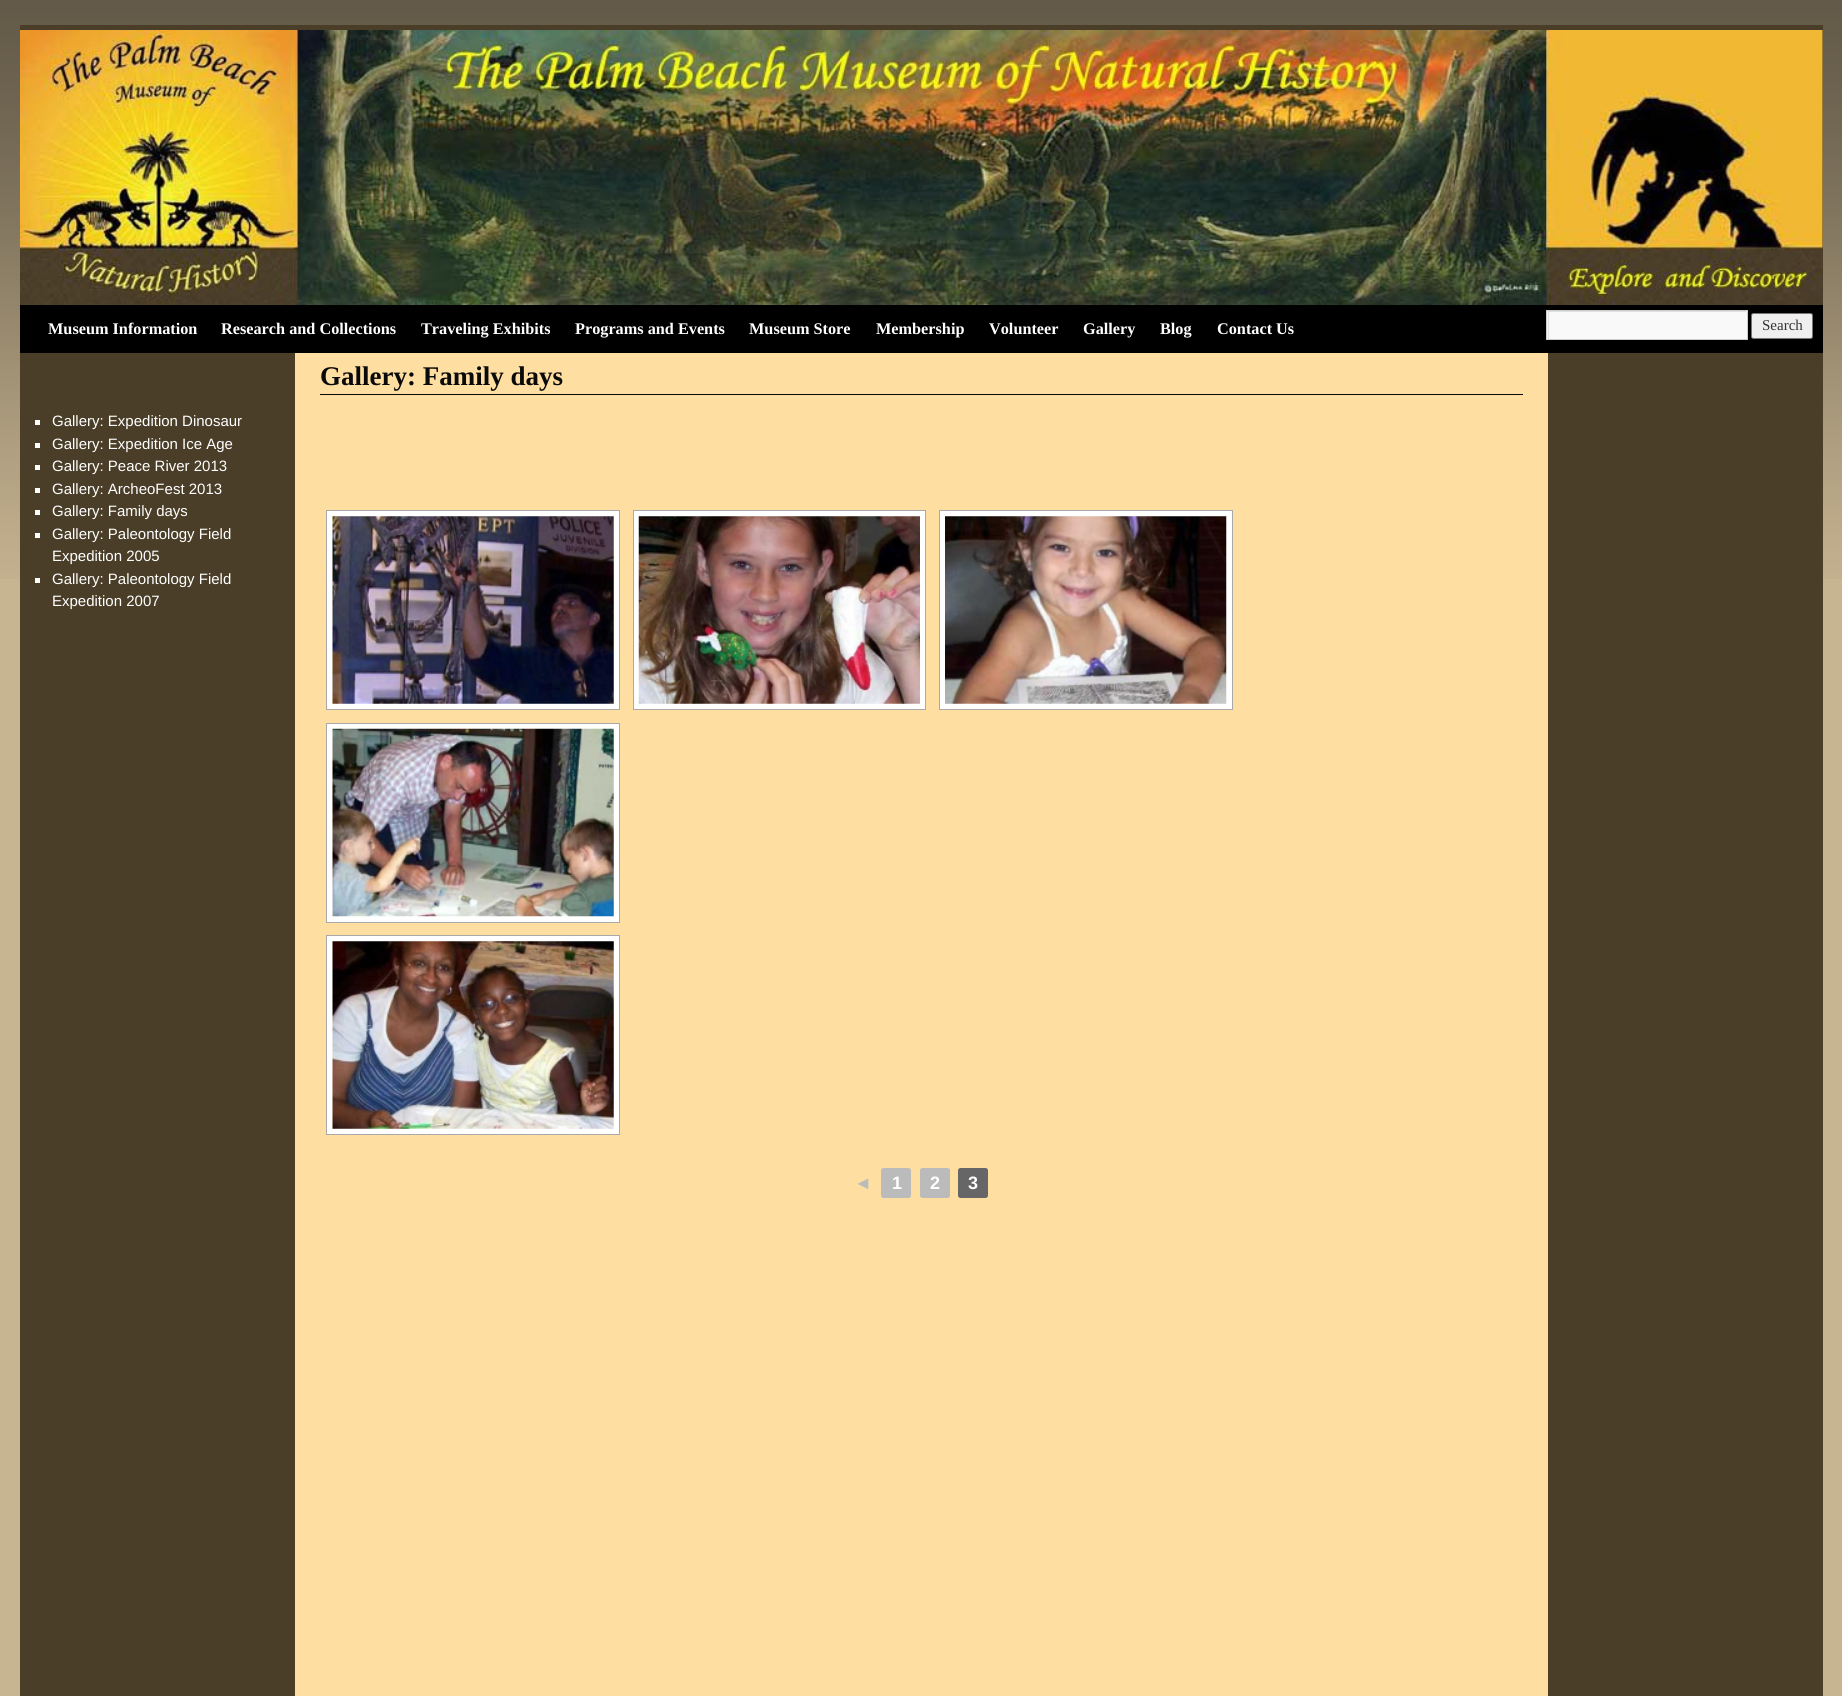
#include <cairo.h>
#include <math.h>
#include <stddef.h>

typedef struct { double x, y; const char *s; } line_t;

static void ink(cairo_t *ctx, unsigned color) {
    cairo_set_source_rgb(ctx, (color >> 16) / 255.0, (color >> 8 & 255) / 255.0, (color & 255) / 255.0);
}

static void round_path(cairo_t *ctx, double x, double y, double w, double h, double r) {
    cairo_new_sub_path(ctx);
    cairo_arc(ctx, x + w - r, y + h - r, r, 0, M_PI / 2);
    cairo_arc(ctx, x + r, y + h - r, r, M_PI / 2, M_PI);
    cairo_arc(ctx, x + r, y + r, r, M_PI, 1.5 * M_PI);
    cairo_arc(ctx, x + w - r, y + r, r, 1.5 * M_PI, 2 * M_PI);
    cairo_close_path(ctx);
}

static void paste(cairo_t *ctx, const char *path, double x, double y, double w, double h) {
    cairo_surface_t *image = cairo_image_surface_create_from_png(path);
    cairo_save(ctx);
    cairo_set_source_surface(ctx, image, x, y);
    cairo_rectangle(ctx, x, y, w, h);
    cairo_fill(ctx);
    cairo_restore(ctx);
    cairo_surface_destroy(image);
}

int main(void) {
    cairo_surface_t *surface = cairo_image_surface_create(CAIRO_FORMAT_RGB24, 1842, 1696);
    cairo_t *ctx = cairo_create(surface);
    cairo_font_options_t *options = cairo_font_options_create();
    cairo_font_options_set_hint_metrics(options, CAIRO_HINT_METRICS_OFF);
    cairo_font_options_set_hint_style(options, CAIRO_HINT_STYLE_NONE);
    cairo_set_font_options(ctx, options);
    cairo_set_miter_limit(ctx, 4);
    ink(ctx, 0xC7B491);
    cairo_paint(ctx);
    paste(ctx, "media/1.png", 0, 0, 1842, 579);
    ink(ctx, 0x4A3E28);
    cairo_rectangle(ctx, 20, 25, 1803, 1671);
    cairo_fill(ctx);
    paste(ctx, "media/2.png", 20, 30, 1803, 275);
    ink(ctx, 0x000000);
    cairo_rectangle(ctx, 20, 305, 1803, 48);
    cairo_fill(ctx);
    cairo_select_font_face(ctx, "Liberation Serif", CAIRO_FONT_SLANT_NORMAL, CAIRO_FONT_WEIGHT_BOLD);
    cairo_set_font_size(ctx, 16.25);
    ink(ctx, 0xFFFFFF);
    {
        static const line_t items[] = {
            {48, 334, "Museum Information"},
            {221, 334, "Research and Collections"},
            {421, 334, "Traveling Exhibits"},
            {575, 334, "Programs and Events"},
            {749, 334, "Museum Store"},
            {876, 334, "Membership"},
            {989, 334, "Volunteer"},
            {1083, 334, "Gallery"},
            {1160, 334, "Blog"},
            {1217, 334, "Contact Us"},
        };
        for (size_t i = 0; i < sizeof items / sizeof *items; i++) {
            cairo_move_to(ctx, items[i].x, items[i].y);
            cairo_show_text(ctx, items[i].s);
        }
    }
    ink(ctx, 0xF9F9F9);
    cairo_rectangle(ctx, 1547, 311, 200, 28);
    cairo_fill(ctx);
    cairo_save(ctx);
    cairo_rectangle(ctx, 1548, 311, 198, 28);
    cairo_clip(ctx);
    ink(ctx, 0xE0E0E0);
    cairo_set_fill_rule(ctx, CAIRO_FILL_RULE_EVEN_ODD);
    cairo_new_path(ctx);
    cairo_move_to(ctx, 1424, 188);
    cairo_line_to(ctx, 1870, 188);
    cairo_line_to(ctx, 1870, 462);
    cairo_line_to(ctx, 1424, 462);
    cairo_close_path(ctx);
    cairo_move_to(ctx, 1549, 312);
    cairo_line_to(ctx, 1748, 312);
    cairo_line_to(ctx, 1748, 340);
    cairo_line_to(ctx, 1549, 340);
    cairo_close_path(ctx);
    cairo_fill(ctx);
    cairo_restore(ctx);
    cairo_rectangle(ctx, 1546.5, 310.5, 201, 29);
    ink(ctx, 0xCCCCCC);
    cairo_set_line_width(ctx, 1);
    cairo_stroke(ctx);
    ink(ctx, 0xEFEFEF);
    round_path(ctx, 1751.5, 313.5, 61, 25, 2);
    cairo_fill_preserve(ctx);
    ink(ctx, 0x767676);
    cairo_stroke(ctx);
    cairo_select_font_face(ctx, "Liberation Serif", CAIRO_FONT_SLANT_NORMAL, CAIRO_FONT_WEIGHT_NORMAL);
    cairo_set_font_size(ctx, 15);
    ink(ctx, 0x333333);
    cairo_move_to(ctx, 1762, 330);
    cairo_show_text(ctx, "Search");
    ink(ctx, 0xFFFFFF);
    cairo_rectangle(ctx, 35, 420, 5, 5);
    cairo_fill(ctx);
    cairo_select_font_face(ctx, "Liberation Sans", CAIRO_FONT_SLANT_NORMAL, CAIRO_FONT_WEIGHT_NORMAL);
    cairo_move_to(ctx, 52, 426);
    cairo_show_text(ctx, "Gallery: Expedition Dinosaur");
    cairo_rectangle(ctx, 35, 443, 5, 5);
    cairo_fill(ctx);
    cairo_move_to(ctx, 52, 449);
    cairo_show_text(ctx, "Gallery: Expedition Ice Age");
    cairo_rectangle(ctx, 35, 465, 5, 5);
    cairo_fill(ctx);
    cairo_move_to(ctx, 52, 471);
    cairo_show_text(ctx, "Gallery: Peace River 2013");
    cairo_rectangle(ctx, 35, 488, 5, 5);
    cairo_fill(ctx);
    cairo_move_to(ctx, 52, 494);
    cairo_show_text(ctx, "Gallery: ArcheoFest 2013");
    cairo_rectangle(ctx, 35, 510, 5, 5);
    cairo_fill(ctx);
    cairo_move_to(ctx, 52, 516);
    cairo_show_text(ctx, "Gallery: Family days");
    cairo_rectangle(ctx, 35, 533, 5, 5);
    cairo_fill(ctx);
    cairo_move_to(ctx, 52, 539);
    cairo_show_text(ctx, "Gallery: Paleontology Field");
    cairo_move_to(ctx, 52, 561);
    cairo_show_text(ctx, "Expedition 2005");
    cairo_rectangle(ctx, 35, 578, 5, 5);
    cairo_fill(ctx);
    cairo_move_to(ctx, 52, 584);
    cairo_show_text(ctx, "Gallery: Paleontology Field");
    cairo_move_to(ctx, 52, 606);
    cairo_show_text(ctx, "Expedition 2007");
    ink(ctx, 0xFEDEA1);
    cairo_rectangle(ctx, 295, 353, 1253, 1343);
    cairo_fill(ctx);
    ink(ctx, 0x0A0A0A);
    cairo_rectangle(ctx, 320, 394, 1203, 1);
    cairo_fill(ctx);
    cairo_select_font_face(ctx, "Liberation Serif", CAIRO_FONT_SLANT_NORMAL, CAIRO_FONT_WEIGHT_BOLD);
    cairo_set_font_size(ctx, 27);
    cairo_move_to(ctx, 320, 385);
    cairo_show_text(ctx, "Gallery: Family days");
    ink(ctx, 0xFFFFFF);
    cairo_rectangle(ctx, 326.5, 510.5, 293, 199);
    cairo_fill_preserve(ctx);
    ink(ctx, 0xA9A9A9);
    cairo_stroke(ctx);
    paste(ctx, "media/3.png", 332, 516, 282, 188);
    ink(ctx, 0xFFFFFF);
    cairo_rectangle(ctx, 633.5, 510.5, 292, 199);
    cairo_fill_preserve(ctx);
    ink(ctx, 0xA9A9A9);
    cairo_stroke(ctx);
    paste(ctx, "media/4.png", 638, 516, 282, 188);
    ink(ctx, 0xFFFFFF);
    cairo_rectangle(ctx, 939.5, 510.5, 293, 199);
    cairo_fill_preserve(ctx);
    ink(ctx, 0xA9A9A9);
    cairo_stroke(ctx);
    paste(ctx, "media/5.png", 945, 516, 282, 188);
    ink(ctx, 0xFFFFFF);
    cairo_rectangle(ctx, 326.5, 723.5, 293, 199);
    cairo_fill_preserve(ctx);
    ink(ctx, 0xA9A9A9);
    cairo_stroke(ctx);
    paste(ctx, "media/6.png", 332, 728, 282, 189);
    ink(ctx, 0xFFFFFF);
    cairo_rectangle(ctx, 326.5, 935.5, 293, 199);
    cairo_fill_preserve(ctx);
    ink(ctx, 0xA9A9A9);
    cairo_stroke(ctx);
    paste(ctx, "media/7.png", 332, 941, 282, 188);
    cairo_select_font_face(ctx, "Liberation Sans", CAIRO_FONT_SLANT_NORMAL, CAIRO_FONT_WEIGHT_BOLD);
    cairo_set_font_size(ctx, 18);
    ink(ctx, 0xBBBBBB);
    cairo_move_to(ctx, 854, 1189);
    cairo_show_text(ctx, "◄");
    round_path(ctx, 881, 1168, 30, 30, 2.5);
    cairo_fill(ctx);
    ink(ctx, 0xFFFFFF);
    cairo_move_to(ctx, 892, 1189);
    cairo_show_text(ctx, "1");
    ink(ctx, 0xBBBBBB);
    round_path(ctx, 920, 1168, 30, 30, 2.5);
    cairo_fill(ctx);
    ink(ctx, 0xFFFFFF);
    cairo_move_to(ctx, 930, 1189);
    cairo_show_text(ctx, "2");
    ink(ctx, 0x666666);
    round_path(ctx, 958, 1168, 30, 30, 2.5);
    cairo_fill(ctx);
    ink(ctx, 0xFFFFFF);
    cairo_move_to(ctx, 968, 1189);
    cairo_show_text(ctx, "3");
    cairo_surface_write_to_png(surface, "image.png");
    cairo_font_options_destroy(options);
    cairo_destroy(ctx);
    cairo_surface_destroy(surface);
    return 0;
}
